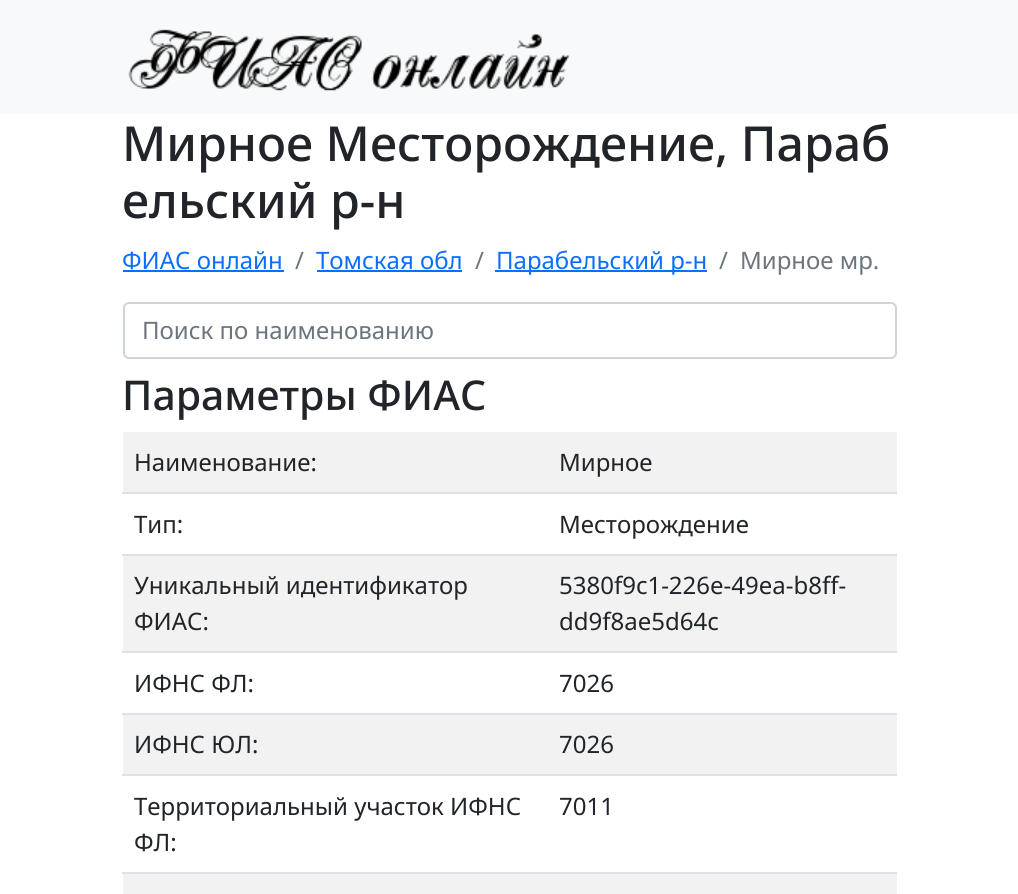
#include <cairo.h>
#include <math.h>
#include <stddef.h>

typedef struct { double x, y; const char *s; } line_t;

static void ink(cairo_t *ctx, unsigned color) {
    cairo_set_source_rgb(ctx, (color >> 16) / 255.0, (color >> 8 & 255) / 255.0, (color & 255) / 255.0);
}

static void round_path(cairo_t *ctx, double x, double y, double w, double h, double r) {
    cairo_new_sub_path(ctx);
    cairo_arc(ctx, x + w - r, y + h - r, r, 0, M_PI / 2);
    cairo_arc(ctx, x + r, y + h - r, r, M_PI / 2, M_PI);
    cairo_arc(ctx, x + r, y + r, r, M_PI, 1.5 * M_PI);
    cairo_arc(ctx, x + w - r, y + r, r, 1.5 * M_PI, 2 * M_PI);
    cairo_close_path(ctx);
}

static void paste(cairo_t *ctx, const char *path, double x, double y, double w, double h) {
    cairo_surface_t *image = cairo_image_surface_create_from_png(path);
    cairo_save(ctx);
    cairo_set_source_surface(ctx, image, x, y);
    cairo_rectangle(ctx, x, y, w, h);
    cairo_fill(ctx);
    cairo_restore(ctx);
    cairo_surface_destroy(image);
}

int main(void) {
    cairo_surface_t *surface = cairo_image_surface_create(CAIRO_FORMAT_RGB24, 1018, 894);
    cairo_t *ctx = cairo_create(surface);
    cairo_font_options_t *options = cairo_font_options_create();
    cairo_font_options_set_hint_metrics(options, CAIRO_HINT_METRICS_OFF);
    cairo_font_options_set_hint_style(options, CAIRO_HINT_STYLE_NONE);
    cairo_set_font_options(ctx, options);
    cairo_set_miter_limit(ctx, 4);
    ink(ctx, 0xFFFFFF);
    cairo_paint(ctx);
    ink(ctx, 0xF8F9FA);
    cairo_rectangle(ctx, 0, 0, 1018, 114);
    cairo_fill(ctx);
    paste(ctx, "media/1.png", 128, 29, 442, 62);
    cairo_select_font_face(ctx, "Noto Sans Medium", CAIRO_FONT_SLANT_NORMAL, CAIRO_FONT_WEIGHT_NORMAL);
    cairo_set_font_size(ctx, 48.25);
    ink(ctx, 0x212529);
    cairo_move_to(ctx, 122, 161);
    cairo_show_text(ctx, "Мирное Месторождение, Параб");
    cairo_move_to(ctx, 122, 218);
    cairo_show_text(ctx, "ельский р-н");
    cairo_select_font_face(ctx, "Noto Sans", CAIRO_FONT_SLANT_NORMAL, CAIRO_FONT_WEIGHT_NORMAL);
    cairo_set_font_size(ctx, 24);
    ink(ctx, 0x0D6EFD);
    cairo_move_to(ctx, 122, 269);
    cairo_show_text(ctx, "ФИАС онлайн");
    cairo_rectangle(ctx, 123, 270, 161, 2);
    cairo_fill(ctx);
    ink(ctx, 0x6C757D);
    cairo_move_to(ctx, 295, 269);
    cairo_show_text(ctx, "/");
    ink(ctx, 0x0D6EFD);
    cairo_move_to(ctx, 316, 269);
    cairo_show_text(ctx, "Томская обл");
    cairo_rectangle(ctx, 317, 270, 145, 2);
    cairo_fill(ctx);
    ink(ctx, 0x6C757D);
    cairo_move_to(ctx, 475, 269);
    cairo_show_text(ctx, "/");
    ink(ctx, 0x0D6EFD);
    cairo_rectangle(ctx, 495, 270, 212, 2);
    cairo_fill(ctx);
    cairo_move_to(ctx, 496, 269);
    cairo_show_text(ctx, "Парабельский р-н");
    ink(ctx, 0x6C757D);
    cairo_move_to(ctx, 719, 269);
    cairo_show_text(ctx, "/");
    cairo_move_to(ctx, 740, 269);
    cairo_show_text(ctx, "Мирное мр.");
    round_path(ctx, 124, 303, 772, 55, 5);
    ink(ctx, 0xCED4DA);
    cairo_stroke(ctx);
    ink(ctx, 0x6C757D);
    cairo_move_to(ctx, 142, 339);
    cairo_show_text(ctx, "Поиск по наименованию");
    cairo_select_font_face(ctx, "Noto Sans Medium", CAIRO_FONT_SLANT_NORMAL, CAIRO_FONT_WEIGHT_NORMAL);
    cairo_set_font_size(ctx, 41);
    ink(ctx, 0x212529);
    cairo_move_to(ctx, 122, 410);
    cairo_show_text(ctx, "Параметры ФИАС");
    ink(ctx, 0xF2F2F2);
    cairo_rectangle(ctx, 123, 432, 774, 60);
    cairo_fill(ctx);
    cairo_select_font_face(ctx, "Noto Sans", CAIRO_FONT_SLANT_NORMAL, CAIRO_FONT_WEIGHT_NORMAL);
    cairo_set_font_size(ctx, 24);
    ink(ctx, 0x212529);
    cairo_move_to(ctx, 134, 471);
    cairo_show_text(ctx, "Наименование:");
    ink(ctx, 0xDEE2E6);
    cairo_rectangle(ctx, 122, 492, 775, 2);
    cairo_fill(ctx);
    ink(ctx, 0x212529);
    cairo_move_to(ctx, 559, 471);
    cairo_show_text(ctx, "Мирное");
    cairo_move_to(ctx, 134, 533);
    cairo_show_text(ctx, "Тип:");
    ink(ctx, 0xDEE2E6);
    cairo_rectangle(ctx, 122, 554, 775, 2);
    cairo_fill(ctx);
    ink(ctx, 0x212529);
    cairo_move_to(ctx, 559, 533);
    cairo_show_text(ctx, "Месторождение");
    ink(ctx, 0xF2F2F2);
    cairo_rectangle(ctx, 123, 556, 774, 95);
    cairo_fill(ctx);
    ink(ctx, 0x212529);
    cairo_move_to(ctx, 134, 594);
    cairo_show_text(ctx, "Уникальный идентификатор");
    cairo_move_to(ctx, 134, 630);
    cairo_show_text(ctx, "ФИАС:");
    ink(ctx, 0xDEE2E6);
    cairo_rectangle(ctx, 122, 651, 775, 2);
    cairo_fill(ctx);
    ink(ctx, 0x212529);
    {
        static const line_t items[] = {
            {559, 594, "5380f9c1-226e-49ea-b8ff-"},
            {559, 630, "dd9f8ae5d64c"},
            {134, 692, "ИФНС ФЛ:"},
        };
        for (size_t i = 0; i < sizeof items / sizeof *items; i++) {
            cairo_move_to(ctx, items[i].x, items[i].y);
            cairo_show_text(ctx, items[i].s);
        }
    }
    ink(ctx, 0xDEE2E6);
    cairo_rectangle(ctx, 122, 713, 775, 2);
    cairo_fill(ctx);
    ink(ctx, 0x212529);
    cairo_move_to(ctx, 559, 692);
    cairo_show_text(ctx, "7026");
    ink(ctx, 0xF2F2F2);
    cairo_rectangle(ctx, 123, 715, 774, 59);
    cairo_fill(ctx);
    ink(ctx, 0x212529);
    cairo_move_to(ctx, 134, 753);
    cairo_show_text(ctx, "ИФНС ЮЛ:");
    ink(ctx, 0xDEE2E6);
    cairo_rectangle(ctx, 122, 774, 775, 2);
    cairo_fill(ctx);
    ink(ctx, 0x212529);
    {
        static const line_t items[] = {
            {559, 753, "7026"},
            {134, 815, "Территориальный участок ИФНС"},
            {134, 851, "ФЛ:"},
        };
        for (size_t i = 0; i < sizeof items / sizeof *items; i++) {
            cairo_move_to(ctx, items[i].x, items[i].y);
            cairo_show_text(ctx, items[i].s);
        }
    }
    ink(ctx, 0xDEE2E6);
    cairo_rectangle(ctx, 122, 872, 775, 2);
    cairo_fill(ctx);
    ink(ctx, 0x212529);
    cairo_move_to(ctx, 559, 815);
    cairo_show_text(ctx, "7011");
    ink(ctx, 0xF2F2F2);
    cairo_rectangle(ctx, 123, 874, 774, 20);
    cairo_fill(ctx);
    cairo_surface_write_to_png(surface, "image.png");
    cairo_font_options_destroy(options);
    cairo_destroy(ctx);
    cairo_surface_destroy(surface);
    return 0;
}
